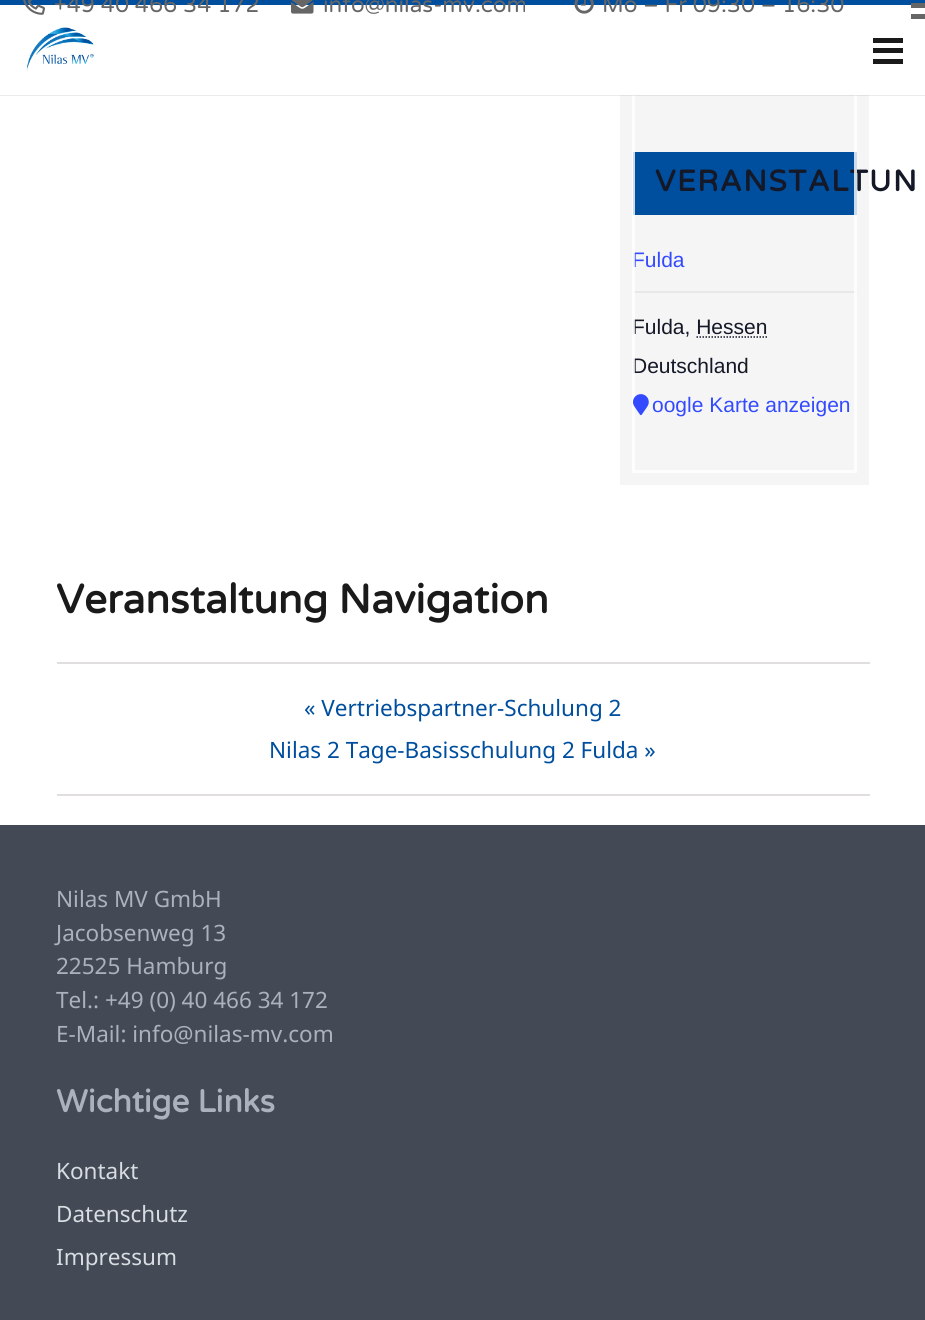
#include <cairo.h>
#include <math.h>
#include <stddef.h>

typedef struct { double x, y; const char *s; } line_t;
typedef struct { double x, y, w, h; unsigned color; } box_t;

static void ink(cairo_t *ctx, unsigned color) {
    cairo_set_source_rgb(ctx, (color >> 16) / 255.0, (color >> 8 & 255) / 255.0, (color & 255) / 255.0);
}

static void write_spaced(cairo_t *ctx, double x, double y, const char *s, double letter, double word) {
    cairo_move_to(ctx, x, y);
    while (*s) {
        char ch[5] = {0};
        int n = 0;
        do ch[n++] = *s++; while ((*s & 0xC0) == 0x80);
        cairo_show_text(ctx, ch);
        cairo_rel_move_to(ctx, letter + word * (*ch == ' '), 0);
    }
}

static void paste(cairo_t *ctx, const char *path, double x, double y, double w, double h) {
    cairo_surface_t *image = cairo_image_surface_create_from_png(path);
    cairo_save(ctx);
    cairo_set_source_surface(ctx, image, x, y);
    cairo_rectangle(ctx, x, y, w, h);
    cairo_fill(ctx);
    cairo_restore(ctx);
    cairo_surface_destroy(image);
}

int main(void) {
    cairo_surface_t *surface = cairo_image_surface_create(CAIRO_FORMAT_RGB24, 925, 1320);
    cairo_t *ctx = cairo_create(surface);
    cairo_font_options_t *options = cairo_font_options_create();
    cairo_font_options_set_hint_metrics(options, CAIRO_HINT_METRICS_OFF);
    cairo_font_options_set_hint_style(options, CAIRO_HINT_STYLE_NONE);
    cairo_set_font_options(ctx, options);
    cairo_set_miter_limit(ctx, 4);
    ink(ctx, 0xFFFFFF);
    cairo_paint(ctx);
    ink(ctx, 0xF5F5F5);
    cairo_rectangle(ctx, 620, 95, 249, 390);
    cairo_fill(ctx);
    ink(ctx, 0x004E9E);
    cairo_rectangle(ctx, 633, 152, 224, 63);
    cairo_fill(ctx);
    cairo_select_font_face(ctx, "Varela Round", CAIRO_FONT_SLANT_NORMAL, CAIRO_FONT_WEIGHT_BOLD);
    cairo_set_font_size(ctx, 29.5);
    ink(ctx, 0x141827);
    write_spaced(ctx, 655, 191, "VERANSTALTUN", 1.5, 0);
    ink(ctx, 0xE8E8E8);
    cairo_rectangle(ctx, 633, 291, 224, 2);
    cairo_fill(ctx);
    cairo_select_font_face(ctx, "Liberation Sans", CAIRO_FONT_SLANT_NORMAL, CAIRO_FONT_WEIGHT_NORMAL);
    cairo_set_font_size(ctx, 21);
    ink(ctx, 0x334AFF);
    cairo_move_to(ctx, 632, 267);
    cairo_show_text(ctx, "Fulda");
    ink(ctx, 0x141827);
    cairo_move_to(ctx, 632, 334);
    cairo_show_text(ctx, "Fulda, Hessen");
    cairo_new_path(ctx);
    cairo_move_to(ctx, 696.5, 337);
    cairo_line_to(ctx, 767.5, 337);
    cairo_set_line_width(ctx, 1.5);
    cairo_set_dash(ctx, (double[]){1.5, 1.5}, 2, 0);
    cairo_stroke(ctx);
    cairo_move_to(ctx, 632, 373);
    cairo_show_text(ctx, "Deutschland");
    cairo_rectangle(ctx, 633.5, -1.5, 222, 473);
    cairo_set_source_rgba(ctx, 1, 1, 1, 0.8);
    cairo_set_line_width(ctx, 3);
    cairo_set_dash(ctx, NULL, 0, 0);
    cairo_stroke(ctx);
    ink(ctx, 0x004E9E);
    cairo_rectangle(ctx, 0, 0, 925, 5);
    cairo_fill(ctx);
    paste(ctx, "media/1.png", 23, 0, 22, 15);
    cairo_select_font_face(ctx, "Varela Round", CAIRO_FONT_SLANT_NORMAL, CAIRO_FONT_WEIGHT_NORMAL);
    cairo_set_font_size(ctx, 22.5);
    ink(ctx, 0x666666);
    cairo_move_to(ctx, 54, 12);
    cairo_show_text(ctx, "+49 40 466 34 172");
    paste(ctx, "media/2.png", 291, 0, 23, 14);
    cairo_move_to(ctx, 323, 12);
    cairo_show_text(ctx, "info@nilas-mv.com");
    paste(ctx, "media/3.png", 574, 0, 20, 14);
    cairo_move_to(ctx, 602, 12);
    cairo_show_text(ctx, "Mo – Fr 09:30 – 16:30");
    cairo_rectangle(ctx, 911, 3, 14, 5);
    cairo_fill(ctx);
    cairo_rectangle(ctx, 911, 14, 14, 5);
    cairo_fill(ctx);
    cairo_set_source_rgba(ctx, 0, 0, 0, 0.08);
    cairo_new_path(ctx);
    cairo_move_to(ctx, 0, 94);
    cairo_line_to(ctx, 0, 96);
    cairo_line_to(ctx, 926, 96);
    cairo_line_to(ctx, 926, 6);
    cairo_line_to(ctx, 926, 94);
    cairo_close_path(ctx);
    cairo_fill(ctx);
    ink(ctx, 0xFFFFFF);
    cairo_rectangle(ctx, 0, 94, 925, 1);
    cairo_fill(ctx);
    paste(ctx, "media/4.png", 26, 27, 68, 44);
    {
        static const box_t items[] = {
            {873, 48, 30, 5, 0x1A1A1A},
            {873, 38, 30, 5, 0x1A1A1A},
            {873, 59, 30, 5, 0x1A1A1A},
        };
        for (size_t i = 0; i < sizeof items / sizeof *items; i++) {
            ink(ctx, items[i].color);
            cairo_rectangle(ctx, items[i].x, items[i].y, items[i].w, items[i].h);
            cairo_fill(ctx);
        }
    }
    paste(ctx, "media/5.png", 633, 394, 16, 22);
    cairo_select_font_face(ctx, "Liberation Sans", CAIRO_FONT_SLANT_NORMAL, CAIRO_FONT_WEIGHT_NORMAL);
    cairo_set_font_size(ctx, 21);
    ink(ctx, 0x334AFF);
    cairo_move_to(ctx, 652, 412);
    cairo_show_text(ctx, "oogle Karte anzeigen");
    cairo_select_font_face(ctx, "Varela Round", CAIRO_FONT_SLANT_NORMAL, CAIRO_FONT_WEIGHT_BOLD);
    cairo_set_font_size(ctx, 40.5);
    ink(ctx, 0x1A1A1A);
    cairo_move_to(ctx, 56, 613);
    cairo_show_text(ctx, "Veranstaltung Navigation");
    ink(ctx, 0xE0DEDE);
    cairo_rectangle(ctx, 57, 662, 813, 2);
    cairo_fill(ctx);
    cairo_rectangle(ctx, 57, 794, 813, 2);
    cairo_fill(ctx);
    cairo_select_font_face(ctx, "Noto Sans", CAIRO_FONT_SLANT_NORMAL, CAIRO_FONT_WEIGHT_NORMAL);
    cairo_set_font_size(ctx, 22.5);
    ink(ctx, 0x004E9E);
    cairo_move_to(ctx, 304, 716);
    cairo_show_text(ctx, "« Vertriebspartner-Schulung 2");
    cairo_move_to(ctx, 269, 758);
    cairo_show_text(ctx, "Nilas 2 Tage-Basisschulung 2 Fulda »");
    ink(ctx, 0x434955);
    cairo_rectangle(ctx, 0, 825, 925, 495);
    cairo_fill(ctx);
    ink(ctx, 0xAAB2BD);
    {
        static const line_t items[] = {
            {56, 907, "Nilas MV GmbH"},
            {56, 941, "Jacobsenweg 13"},
            {56, 974, "22525 Hamburg"},
            {56, 1008, "Tel.: +49 (0) 40 466 34 172"},
            {56, 1042, "E-Mail: info@nilas-mv.com"},
        };
        for (size_t i = 0; i < sizeof items / sizeof *items; i++) {
            cairo_move_to(ctx, items[i].x, items[i].y);
            cairo_show_text(ctx, items[i].s);
        }
    }
    cairo_select_font_face(ctx, "Varela Round", CAIRO_FONT_SLANT_NORMAL, CAIRO_FONT_WEIGHT_BOLD);
    cairo_set_font_size(ctx, 31.5);
    cairo_move_to(ctx, 56, 1112);
    cairo_show_text(ctx, "Wichtige Links");
    cairo_select_font_face(ctx, "Noto Sans", CAIRO_FONT_SLANT_NORMAL, CAIRO_FONT_WEIGHT_NORMAL);
    cairo_set_font_size(ctx, 22.5);
    ink(ctx, 0xD7DDE0);
    {
        static const line_t items[] = {
            {56, 1179, "Kontakt"},
            {56, 1222, "Datenschutz"},
            {56, 1265, "Impressum"},
        };
        for (size_t i = 0; i < sizeof items / sizeof *items; i++) {
            cairo_move_to(ctx, items[i].x, items[i].y);
            cairo_show_text(ctx, items[i].s);
        }
    }
    cairo_surface_write_to_png(surface, "image.png");
    cairo_font_options_destroy(options);
    cairo_destroy(ctx);
    cairo_surface_destroy(surface);
    return 0;
}
